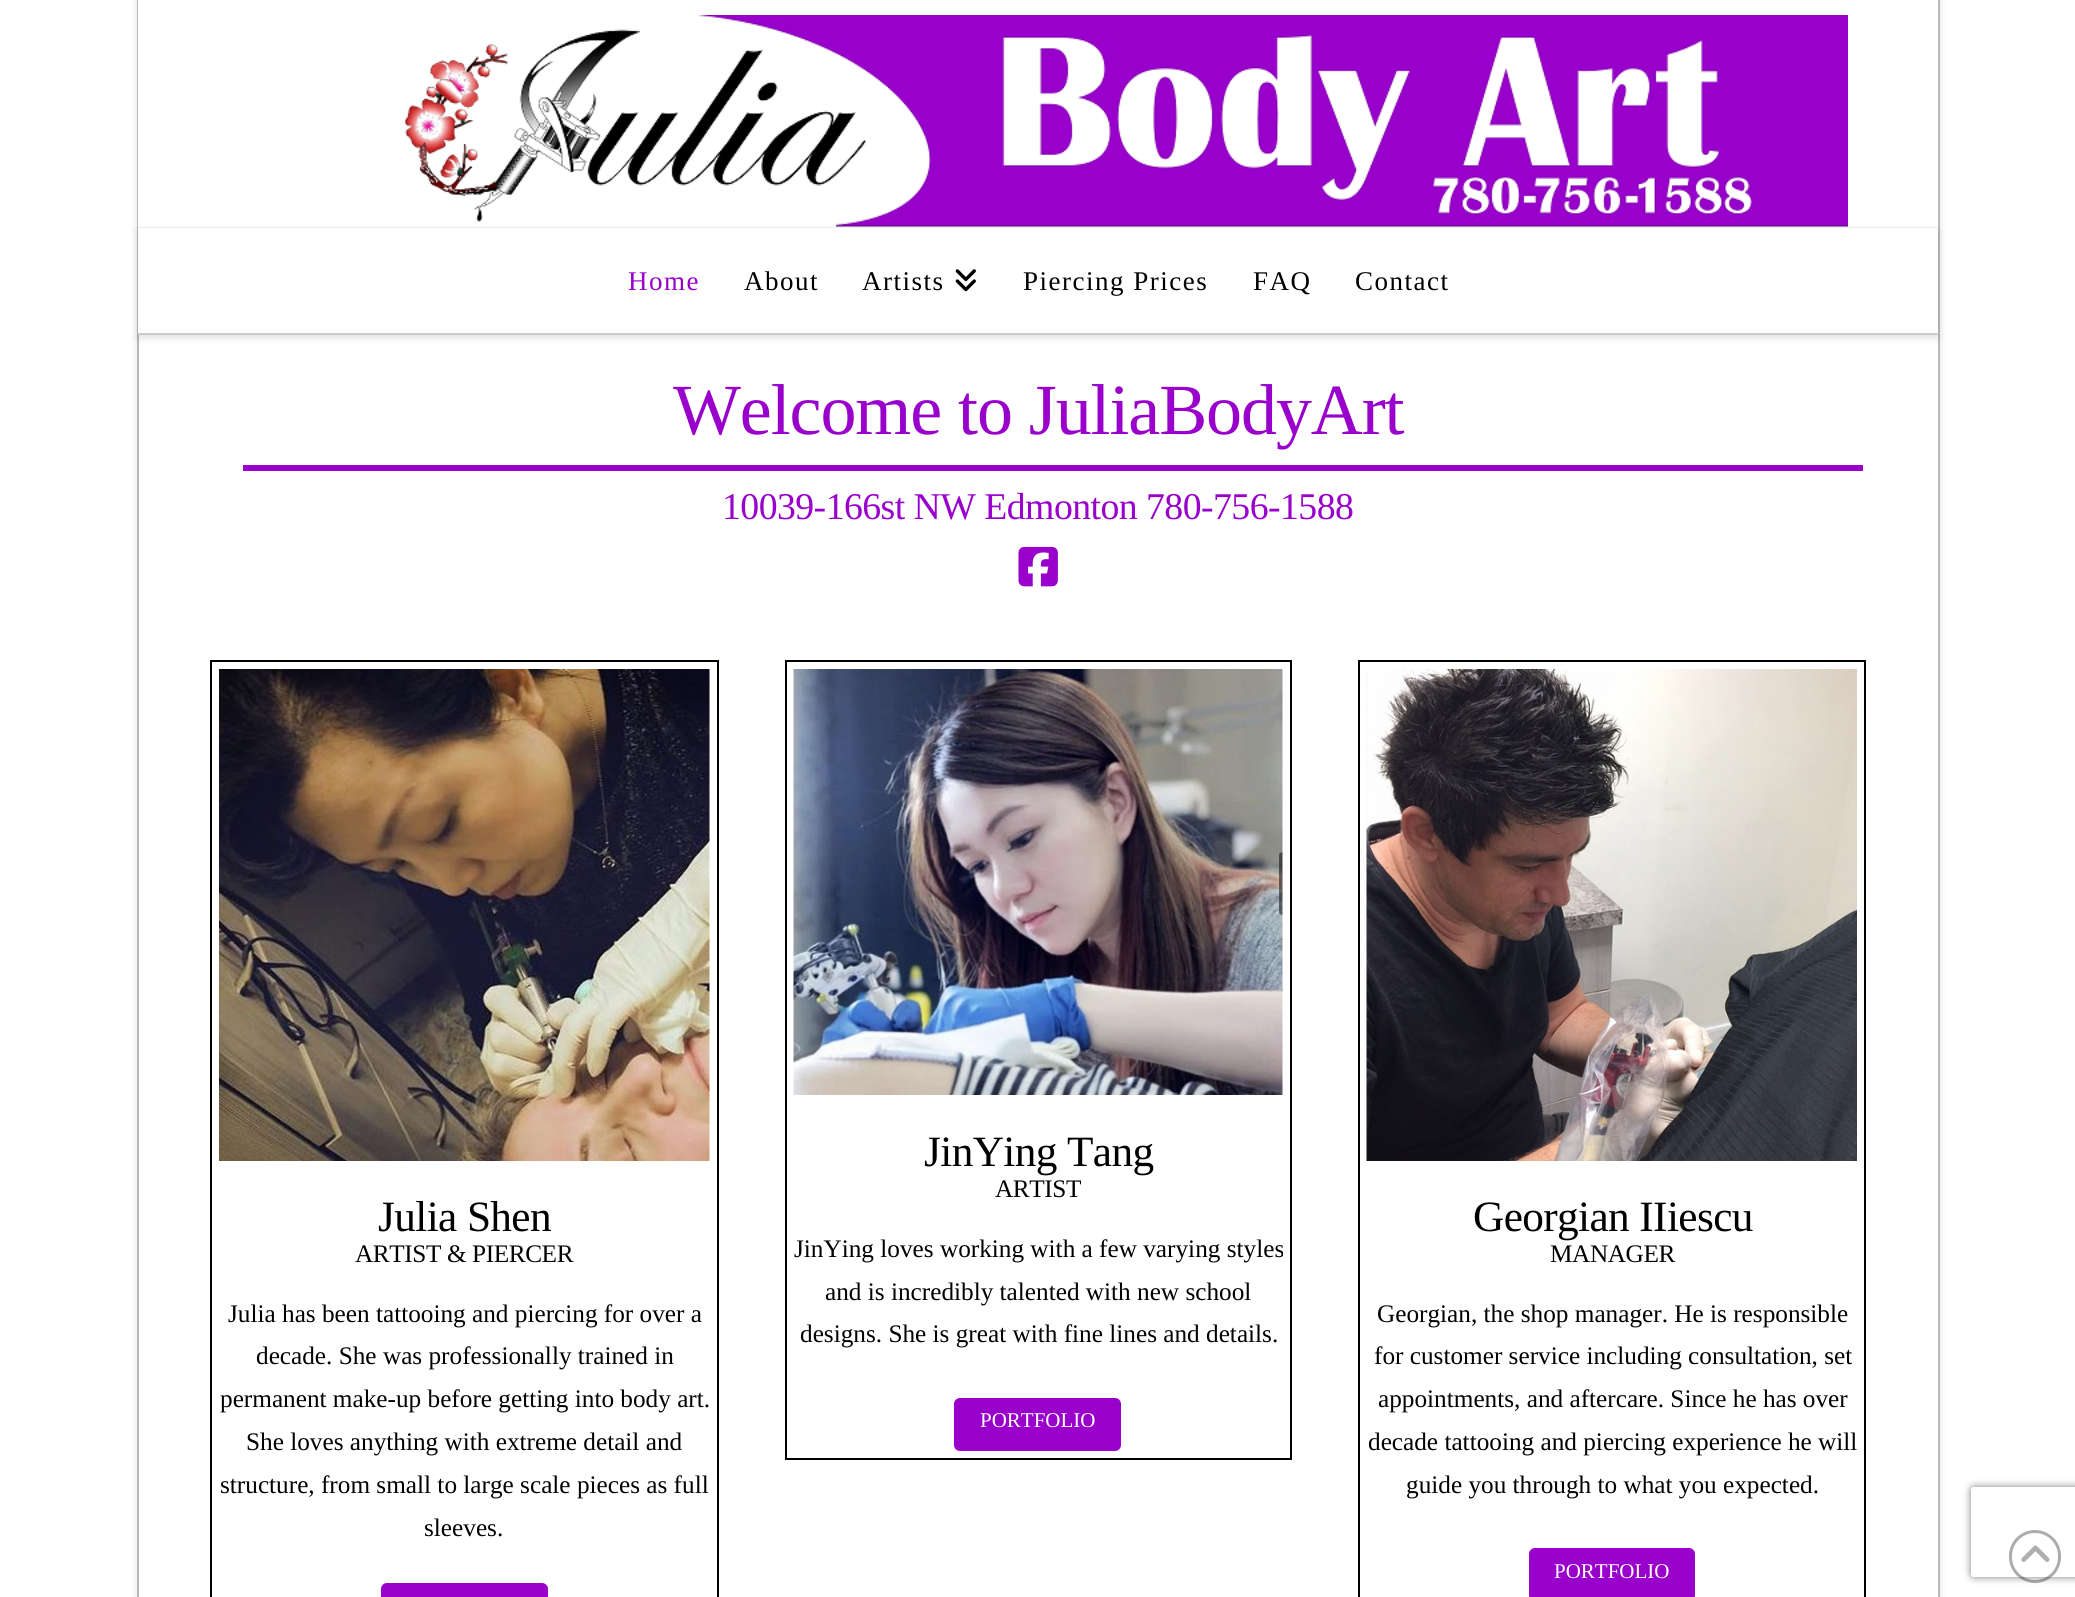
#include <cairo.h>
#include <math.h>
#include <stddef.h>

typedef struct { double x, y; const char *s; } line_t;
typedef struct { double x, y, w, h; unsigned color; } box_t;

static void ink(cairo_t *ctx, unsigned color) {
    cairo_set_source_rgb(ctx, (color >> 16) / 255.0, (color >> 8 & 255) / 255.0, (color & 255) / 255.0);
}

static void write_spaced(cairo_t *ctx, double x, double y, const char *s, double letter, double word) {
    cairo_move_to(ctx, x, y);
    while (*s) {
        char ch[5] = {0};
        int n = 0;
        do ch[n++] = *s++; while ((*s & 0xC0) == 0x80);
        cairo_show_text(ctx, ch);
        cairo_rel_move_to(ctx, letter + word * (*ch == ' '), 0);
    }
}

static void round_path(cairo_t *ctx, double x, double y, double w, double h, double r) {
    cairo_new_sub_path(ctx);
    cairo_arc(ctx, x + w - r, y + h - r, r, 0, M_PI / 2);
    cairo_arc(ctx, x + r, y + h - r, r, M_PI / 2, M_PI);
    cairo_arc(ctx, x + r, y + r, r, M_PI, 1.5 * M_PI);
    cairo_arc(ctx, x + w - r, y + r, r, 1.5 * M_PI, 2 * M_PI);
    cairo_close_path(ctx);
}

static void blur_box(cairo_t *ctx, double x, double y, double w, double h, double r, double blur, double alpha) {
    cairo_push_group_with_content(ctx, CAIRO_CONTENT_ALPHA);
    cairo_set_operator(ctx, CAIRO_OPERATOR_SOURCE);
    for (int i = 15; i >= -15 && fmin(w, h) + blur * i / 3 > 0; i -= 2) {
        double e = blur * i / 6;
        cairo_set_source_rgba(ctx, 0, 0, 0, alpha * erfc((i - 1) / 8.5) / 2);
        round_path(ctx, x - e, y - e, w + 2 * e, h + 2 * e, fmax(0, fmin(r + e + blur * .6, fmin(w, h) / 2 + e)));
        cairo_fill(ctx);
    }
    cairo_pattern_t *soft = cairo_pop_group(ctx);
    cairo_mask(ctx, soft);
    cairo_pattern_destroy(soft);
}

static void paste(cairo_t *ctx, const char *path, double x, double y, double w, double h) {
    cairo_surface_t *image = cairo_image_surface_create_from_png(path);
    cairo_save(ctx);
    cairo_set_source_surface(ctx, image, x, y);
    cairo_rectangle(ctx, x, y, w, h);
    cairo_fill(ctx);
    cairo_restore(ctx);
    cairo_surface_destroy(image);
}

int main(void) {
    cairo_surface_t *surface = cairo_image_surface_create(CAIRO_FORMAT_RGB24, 2075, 1597);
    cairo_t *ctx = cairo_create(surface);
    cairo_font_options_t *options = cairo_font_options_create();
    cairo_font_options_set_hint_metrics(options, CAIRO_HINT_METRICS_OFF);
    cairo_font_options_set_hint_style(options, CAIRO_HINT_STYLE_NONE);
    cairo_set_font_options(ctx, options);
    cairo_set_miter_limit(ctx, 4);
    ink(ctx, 0xFFFFFF);
    cairo_paint(ctx);
    ink(ctx, 0x000000);
    blur_box(ctx, 137, 0, 1803, 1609, 0, 4, 0.12);
    {
        static const box_t items[] = {
            {139, 335, 1799, 1262, 0xFFFFFF},
            {1938, 0, 2, 1597, 0xB9B9B9},
            {137, 0, 2, 1597, 0xB9B9B9},
            {138, 0, 1800, 227, 0xFFFFFF},
            {138, 227, 1800, 1, 0xF2F2F2},
        };
        for (size_t i = 0; i < sizeof items / sizeof *items; i++) {
            ink(ctx, items[i].color);
            cairo_rectangle(ctx, items[i].x, items[i].y, items[i].w, items[i].h);
            cairo_fill(ctx);
        }
    }
    paste(ctx, "media/1.png", 405, 15, 1443, 212);
    ink(ctx, 0x000000);
    blur_box(ctx, 138, 231, 1800, 107, 0, 3.5, 0.13);
    ink(ctx, 0xFFFFFF);
    cairo_rectangle(ctx, 138, 228, 1800, 105);
    cairo_fill(ctx);
    ink(ctx, 0xCCCCCC);
    cairo_rectangle(ctx, 138, 333, 1800, 2);
    cairo_fill(ctx);
    cairo_select_font_face(ctx, "Liberation Serif", CAIRO_FONT_SLANT_NORMAL, CAIRO_FONT_WEIGHT_NORMAL);
    cairo_set_font_size(ctx, 27);
    ink(ctx, 0x9900CC);
    write_spaced(ctx, 628, 290, "Home", 1.5, 0);
    ink(ctx, 0x000000);
    write_spaced(ctx, 744, 290, "About", 1.5, 0);
    write_spaced(ctx, 862, 290, "Artists", 1.5, 0);
    paste(ctx, "media/2.png", 955, 269, 21, 23);
    {
        static const line_t items[] = {
            {1023, 290, "Piercing Prices"},
            {1253, 290, "FAQ"},
            {1355, 290, "Contact"},
        };
        for (size_t i = 0; i < sizeof items / sizeof *items; i++) {
            write_spaced(ctx, items[i].x, items[i].y, items[i].s, 1.5, 0);
        }
    }
    cairo_set_font_size(ctx, 72);
    ink(ctx, 0x9900CC);
    write_spaced(ctx, 673, 434, "Welcome to JuliaBodyArt", -1.1, 0);
    cairo_rectangle(ctx, 243, 465, 1620, 6);
    cairo_fill(ctx);
    cairo_set_font_size(ctx, 37.75);
    write_spaced(ctx, 722, 519, "10039-166st NW Edmonton 780-756-1588", -0.55, 0);
    paste(ctx, "media/3.png", 1018, 546, 40, 41);
    cairo_rectangle(ctx, 211, 661, 507, 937);
    ink(ctx, 0x000000);
    cairo_stroke(ctx);
    paste(ctx, "media/4.png", 219, 669, 491, 492);
    cairo_set_font_size(ctx, 43.25);
    write_spaced(ctx, 378, 1231, "Julia Shen", -0.6, 0);
    cairo_set_font_size(ctx, 25.25);
    write_spaced(ctx, 355, 1262, "ARTIST & PIERCER", -0.4, 0);
    {
        static const line_t items[] = {
            {228, 1322, "Julia has been tattooing and piercing for over a"},
            {256, 1364, "decade. She was professionally trained in"},
            {220, 1407, "permanent make-up before getting into body art."},
            {246, 1450, "She loves anything with extreme detail and"},
            {220, 1493, "structure, from small to large scale pieces as full"},
            {424, 1536, "sleeves."},
        };
        for (size_t i = 0; i < sizeof items / sizeof *items; i++) {
            cairo_move_to(ctx, items[i].x, items[i].y);
            cairo_show_text(ctx, items[i].s);
        }
    }
    ink(ctx, 0x9900CC);
    round_path(ctx, 382, 1584, 165, 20, 5);
    cairo_fill_preserve(ctx);
    cairo_stroke(ctx);
    cairo_rectangle(ctx, 786, 661, 505, 798);
    ink(ctx, 0x000000);
    cairo_stroke(ctx);
    paste(ctx, "media/5.png", 793, 669, 490, 426);
    cairo_set_font_size(ctx, 43.25);
    write_spaced(ctx, 924, 1166, "JinYing Tang", -0.6, 0);
    cairo_set_font_size(ctx, 25.25);
    write_spaced(ctx, 995, 1197, "ARTIST", -0.4, 0);
    {
        static const line_t items[] = {
            {794, 1257, "JinYing loves working with a few varying styles"},
            {825, 1300, "and is incredibly talented with new school"},
            {800, 1342, "designs. She is great with fine lines and details."},
        };
        for (size_t i = 0; i < sizeof items / sizeof *items; i++) {
            cairo_move_to(ctx, items[i].x, items[i].y);
            cairo_show_text(ctx, items[i].s);
        }
    }
    ink(ctx, 0x9900CC);
    round_path(ctx, 955, 1399, 165, 51, 5);
    cairo_fill_preserve(ctx);
    cairo_stroke(ctx);
    cairo_set_font_size(ctx, 21);
    ink(ctx, 0xFFFFFF);
    cairo_move_to(ctx, 980, 1427);
    cairo_show_text(ctx, "PORTFOLIO");
    cairo_rectangle(ctx, 1359, 661, 506, 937);
    ink(ctx, 0x000000);
    cairo_stroke(ctx);
    paste(ctx, "media/6.png", 1366, 669, 491, 492);
    cairo_set_font_size(ctx, 43.25);
    write_spaced(ctx, 1473, 1231, "Georgian IIiescu", -0.6, 0);
    cairo_set_font_size(ctx, 25.25);
    write_spaced(ctx, 1550, 1262, "MANAGER", -0.4, 0);
    {
        static const line_t items[] = {
            {1377, 1322, "Georgian, the shop manager. He is responsible"},
            {1374, 1364, "for customer service including consultation, set"},
            {1378, 1407, "appointments, and aftercare. Since he has over"},
            {1368, 1450, "decade tattooing and piercing experience he will"},
            {1406, 1493, "guide you through to what you expected."},
        };
        for (size_t i = 0; i < sizeof items / sizeof *items; i++) {
            cairo_move_to(ctx, items[i].x, items[i].y);
            cairo_show_text(ctx, items[i].s);
        }
    }
    ink(ctx, 0x9900CC);
    round_path(ctx, 1530, 1549, 164, 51, 5);
    cairo_fill_preserve(ctx);
    cairo_stroke(ctx);
    cairo_set_font_size(ctx, 21);
    ink(ctx, 0xFFFFFF);
    cairo_move_to(ctx, 1554, 1578);
    cairo_show_text(ctx, "PORTFOLIO");
    cairo_save(ctx);
    cairo_set_fill_rule(ctx, CAIRO_FILL_RULE_EVEN_ODD);
    cairo_new_path(ctx);
    cairo_move_to(ctx, 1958, 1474);
    cairo_line_to(ctx, 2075, 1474);
    cairo_line_to(ctx, 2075, 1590);
    cairo_line_to(ctx, 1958, 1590);
    cairo_close_path(ctx);
    cairo_move_to(ctx, 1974, 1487);
    cairo_line_to(ctx, 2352, 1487);
    cairo_curve_to(ctx, 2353.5, 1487, 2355, 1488.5, 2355, 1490);
    cairo_line_to(ctx, 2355, 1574);
    cairo_curve_to(ctx, 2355, 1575.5, 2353.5, 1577, 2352, 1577);
    cairo_line_to(ctx, 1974, 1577);
    cairo_curve_to(ctx, 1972.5, 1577, 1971, 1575.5, 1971, 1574);
    cairo_line_to(ctx, 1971, 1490);
    cairo_curve_to(ctx, 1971, 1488.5, 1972.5, 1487, 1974, 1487);
    cairo_close_path(ctx);
    cairo_clip(ctx);
    ink(ctx, 0x808080);
    blur_box(ctx, 1971, 1487, 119, 90, 3, 4, 1);
    cairo_restore(ctx);
    round_path(ctx, 2010.5, 1531.5, 49, 50, 24.5);
    cairo_set_source_rgba(ctx, 0.153, 0.153, 0.153, 0.38);
    cairo_set_line_width(ctx, 3);
    cairo_stroke(ctx);
    paste(ctx, "media/7.png", 2021, 1545, 29, 17);
    cairo_surface_write_to_png(surface, "image.png");
    cairo_font_options_destroy(options);
    cairo_destroy(ctx);
    cairo_surface_destroy(surface);
    return 0;
}
